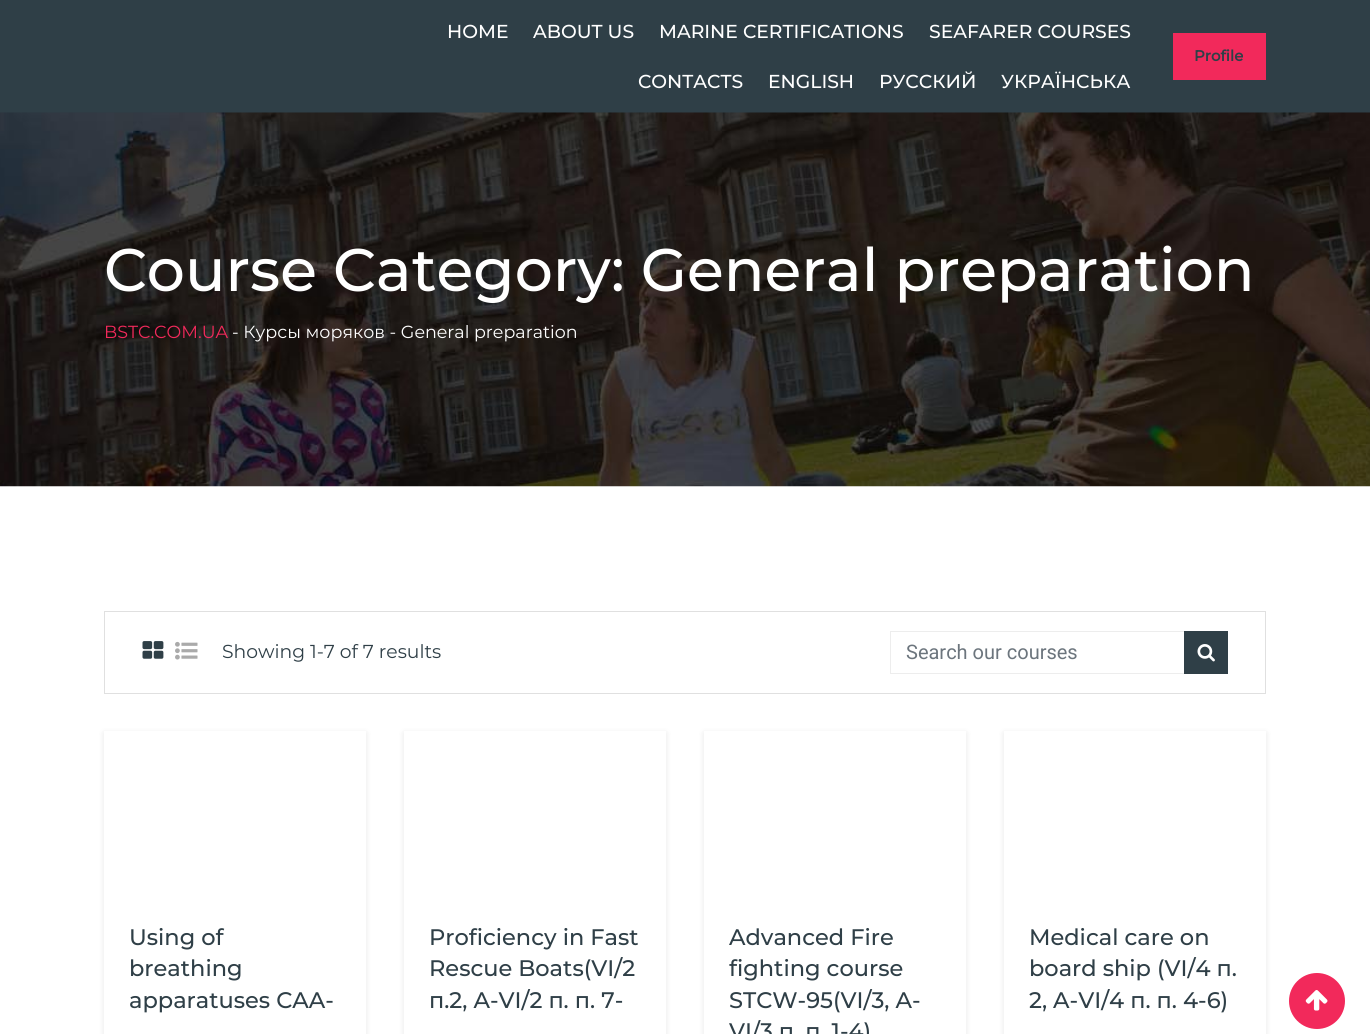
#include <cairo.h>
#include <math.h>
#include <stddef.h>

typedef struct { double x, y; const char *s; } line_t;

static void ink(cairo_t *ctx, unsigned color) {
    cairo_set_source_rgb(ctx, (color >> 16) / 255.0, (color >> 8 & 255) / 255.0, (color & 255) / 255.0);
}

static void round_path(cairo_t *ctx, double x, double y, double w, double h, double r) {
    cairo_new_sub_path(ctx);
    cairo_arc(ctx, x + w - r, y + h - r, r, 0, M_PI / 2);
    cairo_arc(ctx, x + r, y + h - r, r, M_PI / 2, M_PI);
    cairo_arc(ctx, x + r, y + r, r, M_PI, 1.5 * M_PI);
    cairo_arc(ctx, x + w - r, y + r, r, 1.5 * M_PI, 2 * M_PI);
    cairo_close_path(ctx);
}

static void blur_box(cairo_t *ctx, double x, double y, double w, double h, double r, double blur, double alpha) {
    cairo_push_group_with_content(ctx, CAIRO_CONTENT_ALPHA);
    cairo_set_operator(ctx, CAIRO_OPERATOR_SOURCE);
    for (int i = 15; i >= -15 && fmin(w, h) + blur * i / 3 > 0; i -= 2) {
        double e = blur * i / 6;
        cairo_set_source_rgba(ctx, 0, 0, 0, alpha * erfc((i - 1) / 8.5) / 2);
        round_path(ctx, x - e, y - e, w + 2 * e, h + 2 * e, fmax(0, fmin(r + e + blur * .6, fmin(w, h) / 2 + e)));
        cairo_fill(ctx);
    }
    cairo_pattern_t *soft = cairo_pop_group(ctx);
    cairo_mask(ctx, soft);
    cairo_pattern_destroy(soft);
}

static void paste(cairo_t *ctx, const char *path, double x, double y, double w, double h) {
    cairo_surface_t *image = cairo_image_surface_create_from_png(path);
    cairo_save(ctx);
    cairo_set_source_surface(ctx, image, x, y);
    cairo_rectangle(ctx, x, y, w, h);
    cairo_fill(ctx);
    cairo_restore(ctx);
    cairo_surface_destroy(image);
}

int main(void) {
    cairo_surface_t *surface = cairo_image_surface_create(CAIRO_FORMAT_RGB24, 1370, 1034);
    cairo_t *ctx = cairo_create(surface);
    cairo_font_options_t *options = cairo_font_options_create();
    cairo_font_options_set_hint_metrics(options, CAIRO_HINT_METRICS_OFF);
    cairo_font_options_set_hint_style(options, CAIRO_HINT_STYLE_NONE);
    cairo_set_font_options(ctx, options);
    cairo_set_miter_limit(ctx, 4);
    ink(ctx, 0xFFFFFF);
    cairo_paint(ctx);
    ink(ctx, 0x2F3F47);
    cairo_rectangle(ctx, 0, 0, 1370, 113);
    cairo_fill(ctx);
    cairo_select_font_face(ctx, "Montserrat Medium", CAIRO_FONT_SLANT_NORMAL, CAIRO_FONT_WEIGHT_NORMAL);
    cairo_set_font_size(ctx, 18.75);
    ink(ctx, 0xFFFFFF);
    {
        static const line_t items[] = {
            {447, 38, "HOME"},
            {533, 38, "ABOUT US"},
            {659, 38, "MARINE CERTIFICATIONS"},
            {929, 38, "SEAFARER COURSES"},
            {638, 88, "CONTACTS"},
            {768, 88, "ENGLISH"},
            {879, 88, "РУССКИЙ"},
            {1001, 88, "УКРАЇНСЬКА"},
        };
        for (size_t i = 0; i < sizeof items / sizeof *items; i++) {
            cairo_move_to(ctx, items[i].x, items[i].y);
            cairo_show_text(ctx, items[i].s);
        }
    }
    ink(ctx, 0xF2295B);
    cairo_rectangle(ctx, 1173, 33, 93, 47);
    cairo_fill(ctx);
    cairo_select_font_face(ctx, "Montserrat", CAIRO_FONT_SLANT_NORMAL, CAIRO_FONT_WEIGHT_BOLD);
    cairo_set_font_size(ctx, 15);
    ink(ctx, 0x2F3F47);
    cairo_move_to(ctx, 1194, 61);
    cairo_show_text(ctx, "Profile");
    paste(ctx, "media/1.png", 0, 112, 1370, 375);
    cairo_select_font_face(ctx, "Montserrat Medium", CAIRO_FONT_SLANT_NORMAL, CAIRO_FONT_WEIGHT_NORMAL);
    cairo_set_font_size(ctx, 60);
    ink(ctx, 0xFFFFFF);
    cairo_move_to(ctx, 104, 291);
    cairo_show_text(ctx, "Course Category: General preparation");
    cairo_select_font_face(ctx, "Montserrat", CAIRO_FONT_SLANT_NORMAL, CAIRO_FONT_WEIGHT_NORMAL);
    cairo_set_font_size(ctx, 17.5);
    ink(ctx, 0xF2295B);
    cairo_move_to(ctx, 104, 338);
    cairo_show_text(ctx, "BSTC.COM.UA");
    ink(ctx, 0xFFFFFF);
    cairo_move_to(ctx, 232, 338);
    cairo_show_text(ctx, "- Курсы моряков - General preparation");
    cairo_rectangle(ctx, 104.5, 611.5, 1161, 82);
    ink(ctx, 0xE0E0E0);
    cairo_set_line_width(ctx, 1);
    cairo_stroke(ctx);
    paste(ctx, "media/2.png", 142, 641, 22, 18);
    paste(ctx, "media/3.png", 175, 641, 23, 19);
    cairo_set_font_size(ctx, 18.75);
    ink(ctx, 0x2F3F47);
    cairo_move_to(ctx, 222, 658);
    cairo_show_text(ctx, "Showing 1-7 of 7 results");
    cairo_rectangle(ctx, 890.5, 631.5, 337, 42);
    ink(ctx, 0xEDEDED);
    cairo_stroke(ctx);
    cairo_select_font_face(ctx, "Roboto", CAIRO_FONT_SLANT_NORMAL, CAIRO_FONT_WEIGHT_NORMAL);
    cairo_set_font_size(ctx, 20);
    ink(ctx, 0x6C757D);
    cairo_move_to(ctx, 906, 659);
    cairo_show_text(ctx, "Search our courses");
    ink(ctx, 0x2F3F47);
    cairo_rectangle(ctx, 1184, 631, 44, 43);
    cairo_fill(ctx);
    paste(ctx, "media/4.png", 1197, 644, 18, 18);
    ink(ctx, 0x000000);
    blur_box(ctx, 104, 733, 262, 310, 0, 3, 0.1);
    ink(ctx, 0xFFFFFF);
    cairo_rectangle(ctx, 104, 731, 262, 303);
    cairo_fill(ctx);
    cairo_select_font_face(ctx, "Montserrat Medium", CAIRO_FONT_SLANT_NORMAL, CAIRO_FONT_WEIGHT_NORMAL);
    cairo_set_font_size(ctx, 22.5);
    ink(ctx, 0x2F3F47);
    {
        static const line_t items[] = {
            {129, 945, "Using of"},
            {129, 976, "breathing"},
            {129, 1008, "apparatuses CAA-"},
        };
        for (size_t i = 0; i < sizeof items / sizeof *items; i++) {
            cairo_move_to(ctx, items[i].x, items[i].y);
            cairo_show_text(ctx, items[i].s);
        }
    }
    ink(ctx, 0x000000);
    blur_box(ctx, 404, 733, 262, 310, 0, 3, 0.1);
    ink(ctx, 0xFFFFFF);
    cairo_rectangle(ctx, 404, 731, 262, 303);
    cairo_fill(ctx);
    ink(ctx, 0x2F3F47);
    {
        static const line_t items[] = {
            {429, 945, "Proficiency in Fast"},
            {429, 976, "Rescue Boats(VI/2"},
            {429, 1008, "п.2, A-VI/2 п. п. 7-"},
        };
        for (size_t i = 0; i < sizeof items / sizeof *items; i++) {
            cairo_move_to(ctx, items[i].x, items[i].y);
            cairo_show_text(ctx, items[i].s);
        }
    }
    ink(ctx, 0x000000);
    blur_box(ctx, 704, 733, 262, 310, 0, 3, 0.1);
    ink(ctx, 0xFFFFFF);
    cairo_rectangle(ctx, 704, 731, 262, 303);
    cairo_fill(ctx);
    ink(ctx, 0x2F3F47);
    {
        static const line_t items[] = {
            {729, 945, "Advanced Fire"},
            {729, 976, "fighting course"},
            {729, 1008, "STCW-95(VI/3, A-"},
            {729, 1039, "VI/3 п. п. 1-4)"},
        };
        for (size_t i = 0; i < sizeof items / sizeof *items; i++) {
            cairo_move_to(ctx, items[i].x, items[i].y);
            cairo_show_text(ctx, items[i].s);
        }
    }
    ink(ctx, 0x000000);
    blur_box(ctx, 1004, 733, 262, 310, 0, 3, 0.1);
    ink(ctx, 0xFFFFFF);
    cairo_rectangle(ctx, 1004, 731, 262, 303);
    cairo_fill(ctx);
    ink(ctx, 0x2F3F47);
    {
        static const line_t items[] = {
            {1029, 945, "Medical care on"},
            {1029, 976, "board ship (VI/4 п."},
            {1029, 1008, "2, A-VI/4 п. п. 4-6)"},
        };
        for (size_t i = 0; i < sizeof items / sizeof *items; i++) {
            cairo_move_to(ctx, items[i].x, items[i].y);
            cairo_show_text(ctx, items[i].s);
        }
    }
    ink(ctx, 0xF2295B);
    cairo_new_path(ctx);
    cairo_arc(ctx, 1317, 1001, 28, 0, 2 * M_PI);
    cairo_fill(ctx);
    paste(ctx, "media/5.png", 1305, 990, 23, 21);
    cairo_surface_write_to_png(surface, "image.png");
    cairo_font_options_destroy(options);
    cairo_destroy(ctx);
    cairo_surface_destroy(surface);
    return 0;
}
